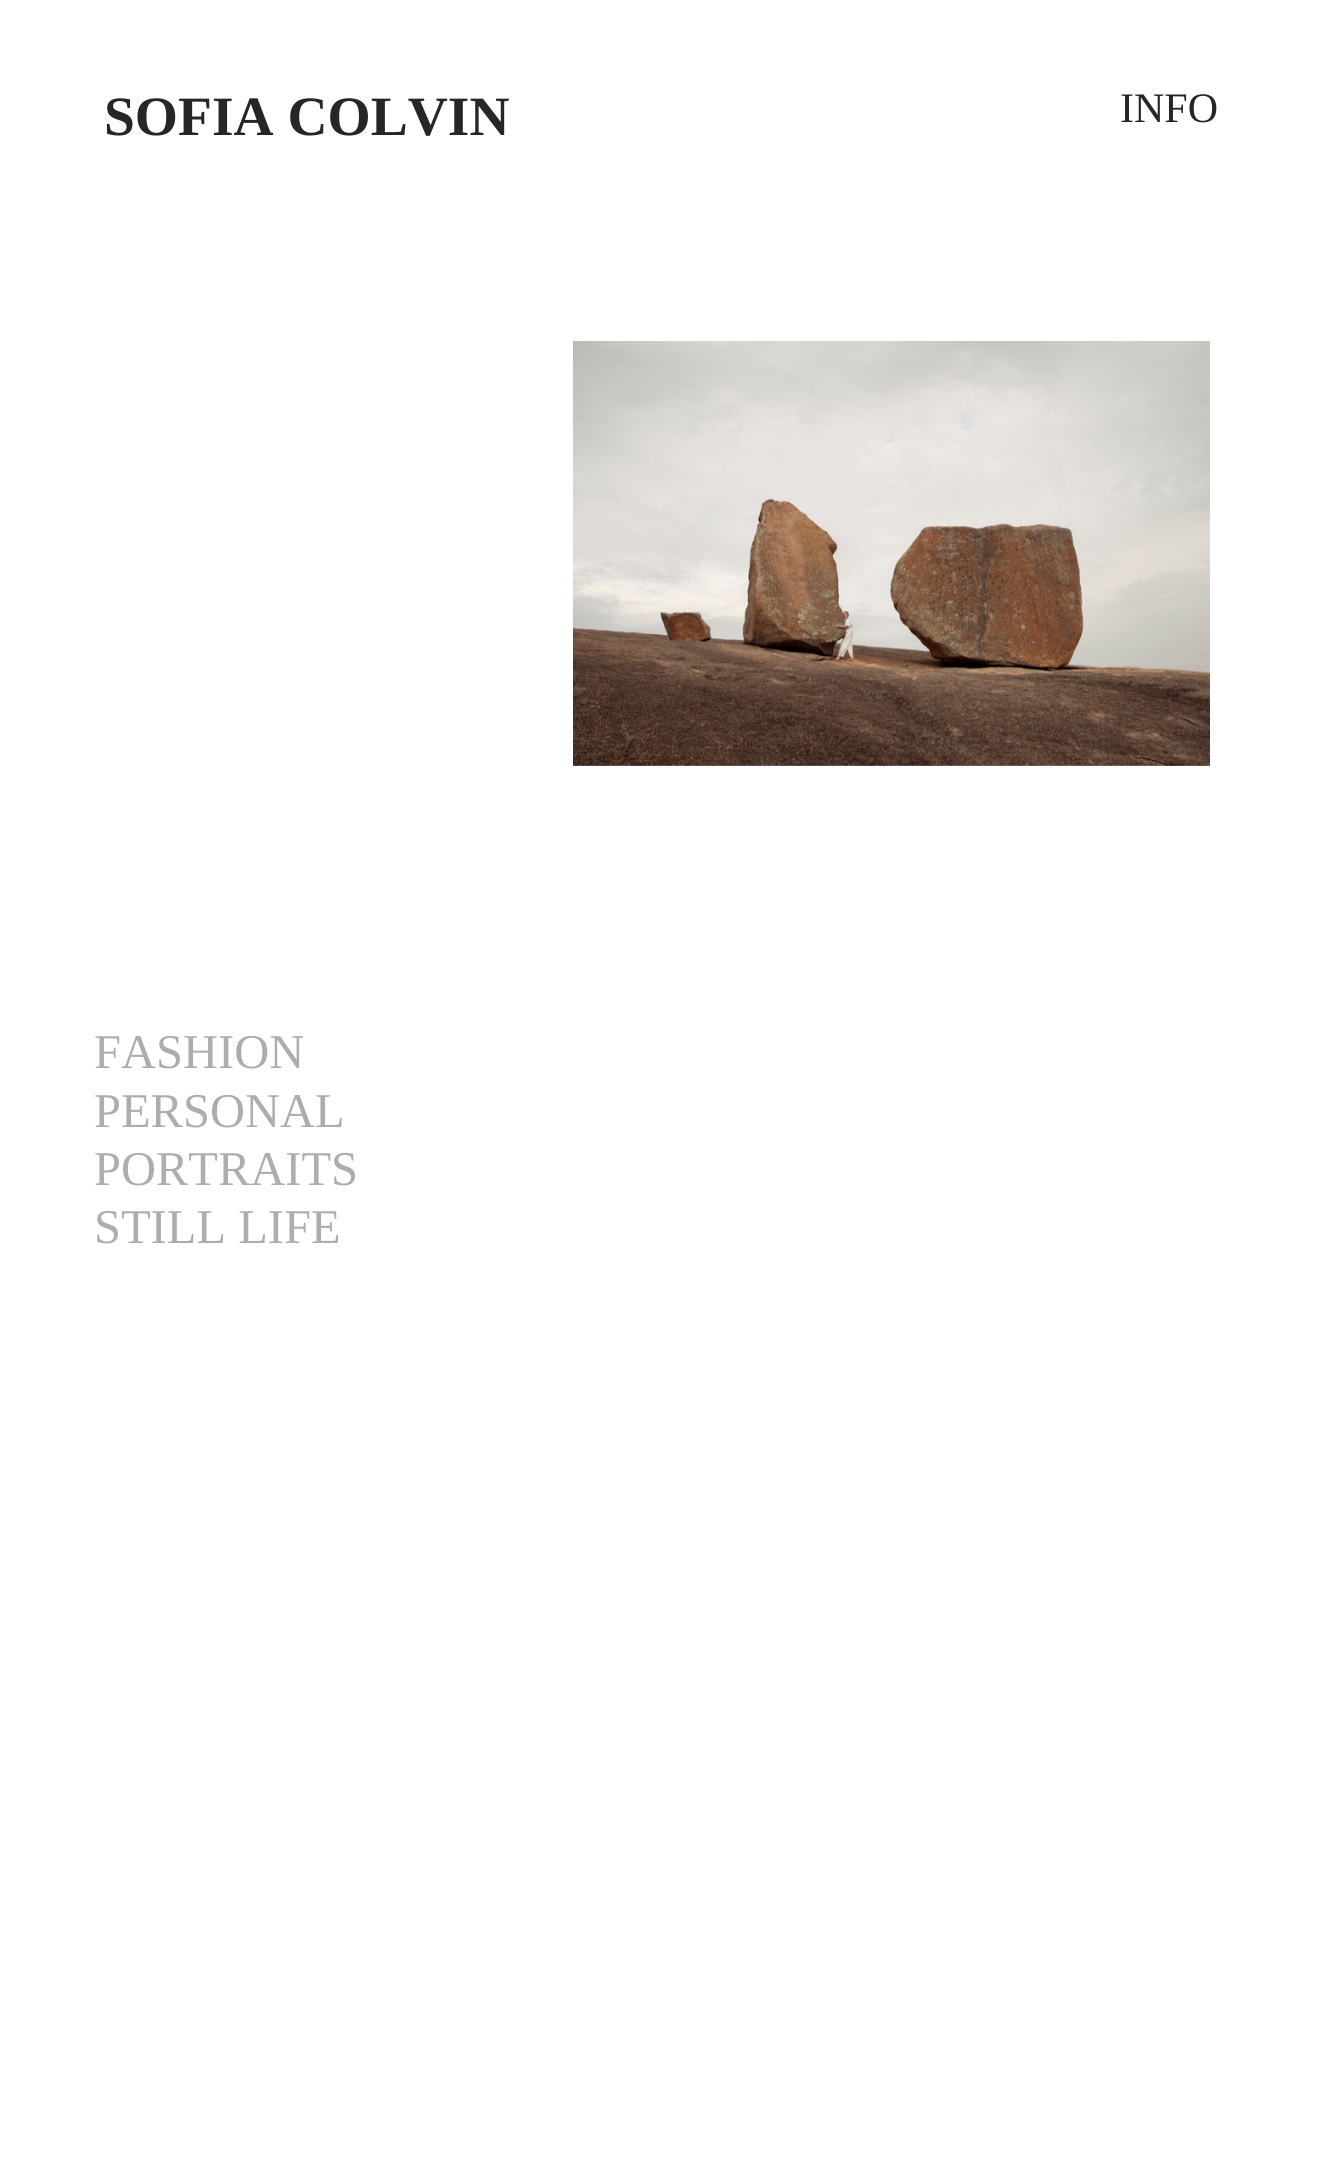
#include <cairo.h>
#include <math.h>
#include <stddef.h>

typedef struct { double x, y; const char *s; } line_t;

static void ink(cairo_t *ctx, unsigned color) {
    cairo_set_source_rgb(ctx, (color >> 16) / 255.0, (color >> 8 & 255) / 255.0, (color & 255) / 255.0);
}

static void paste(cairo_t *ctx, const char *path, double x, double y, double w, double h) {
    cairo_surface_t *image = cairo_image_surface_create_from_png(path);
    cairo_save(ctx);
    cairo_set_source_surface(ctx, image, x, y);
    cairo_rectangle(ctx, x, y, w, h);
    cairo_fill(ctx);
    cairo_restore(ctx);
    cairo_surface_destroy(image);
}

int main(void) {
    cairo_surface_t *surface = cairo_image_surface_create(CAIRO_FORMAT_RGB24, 1322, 2171);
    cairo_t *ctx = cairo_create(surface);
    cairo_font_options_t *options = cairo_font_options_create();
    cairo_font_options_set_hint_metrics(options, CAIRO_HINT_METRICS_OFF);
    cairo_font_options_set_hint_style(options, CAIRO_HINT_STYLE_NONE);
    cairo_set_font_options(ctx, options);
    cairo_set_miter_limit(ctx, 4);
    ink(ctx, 0xFFFFFF);
    cairo_paint(ctx);
    cairo_select_font_face(ctx, "Liberation Serif", CAIRO_FONT_SLANT_NORMAL, CAIRO_FONT_WEIGHT_BOLD);
    cairo_set_font_size(ctx, 55.5);
    ink(ctx, 0x262626);
    cairo_move_to(ctx, 104, 135);
    cairo_show_text(ctx, "SOFIA COLVIN");
    cairo_select_font_face(ctx, "Liberation Serif", CAIRO_FONT_SLANT_NORMAL, CAIRO_FONT_WEIGHT_NORMAL);
    cairo_set_font_size(ctx, 42);
    cairo_move_to(ctx, 1120, 122);
    cairo_show_text(ctx, "INFO");
    cairo_set_font_size(ctx, 48.5);
    ink(ctx, 0xADADAF);
    {
        static const line_t items[] = {
            {94, 1068, "FASHION"},
            {94, 1127, "PERSONAL"},
            {94, 1185, "PORTRAITS"},
            {94, 1243, "STILL LIFE"},
        };
        for (size_t i = 0; i < sizeof items / sizeof *items; i++) {
            cairo_move_to(ctx, items[i].x, items[i].y);
            cairo_show_text(ctx, items[i].s);
        }
    }
    paste(ctx, "media/1.png", 573, 341, 637, 425);
    cairo_surface_write_to_png(surface, "image.png");
    cairo_font_options_destroy(options);
    cairo_destroy(ctx);
    cairo_surface_destroy(surface);
    return 0;
}
